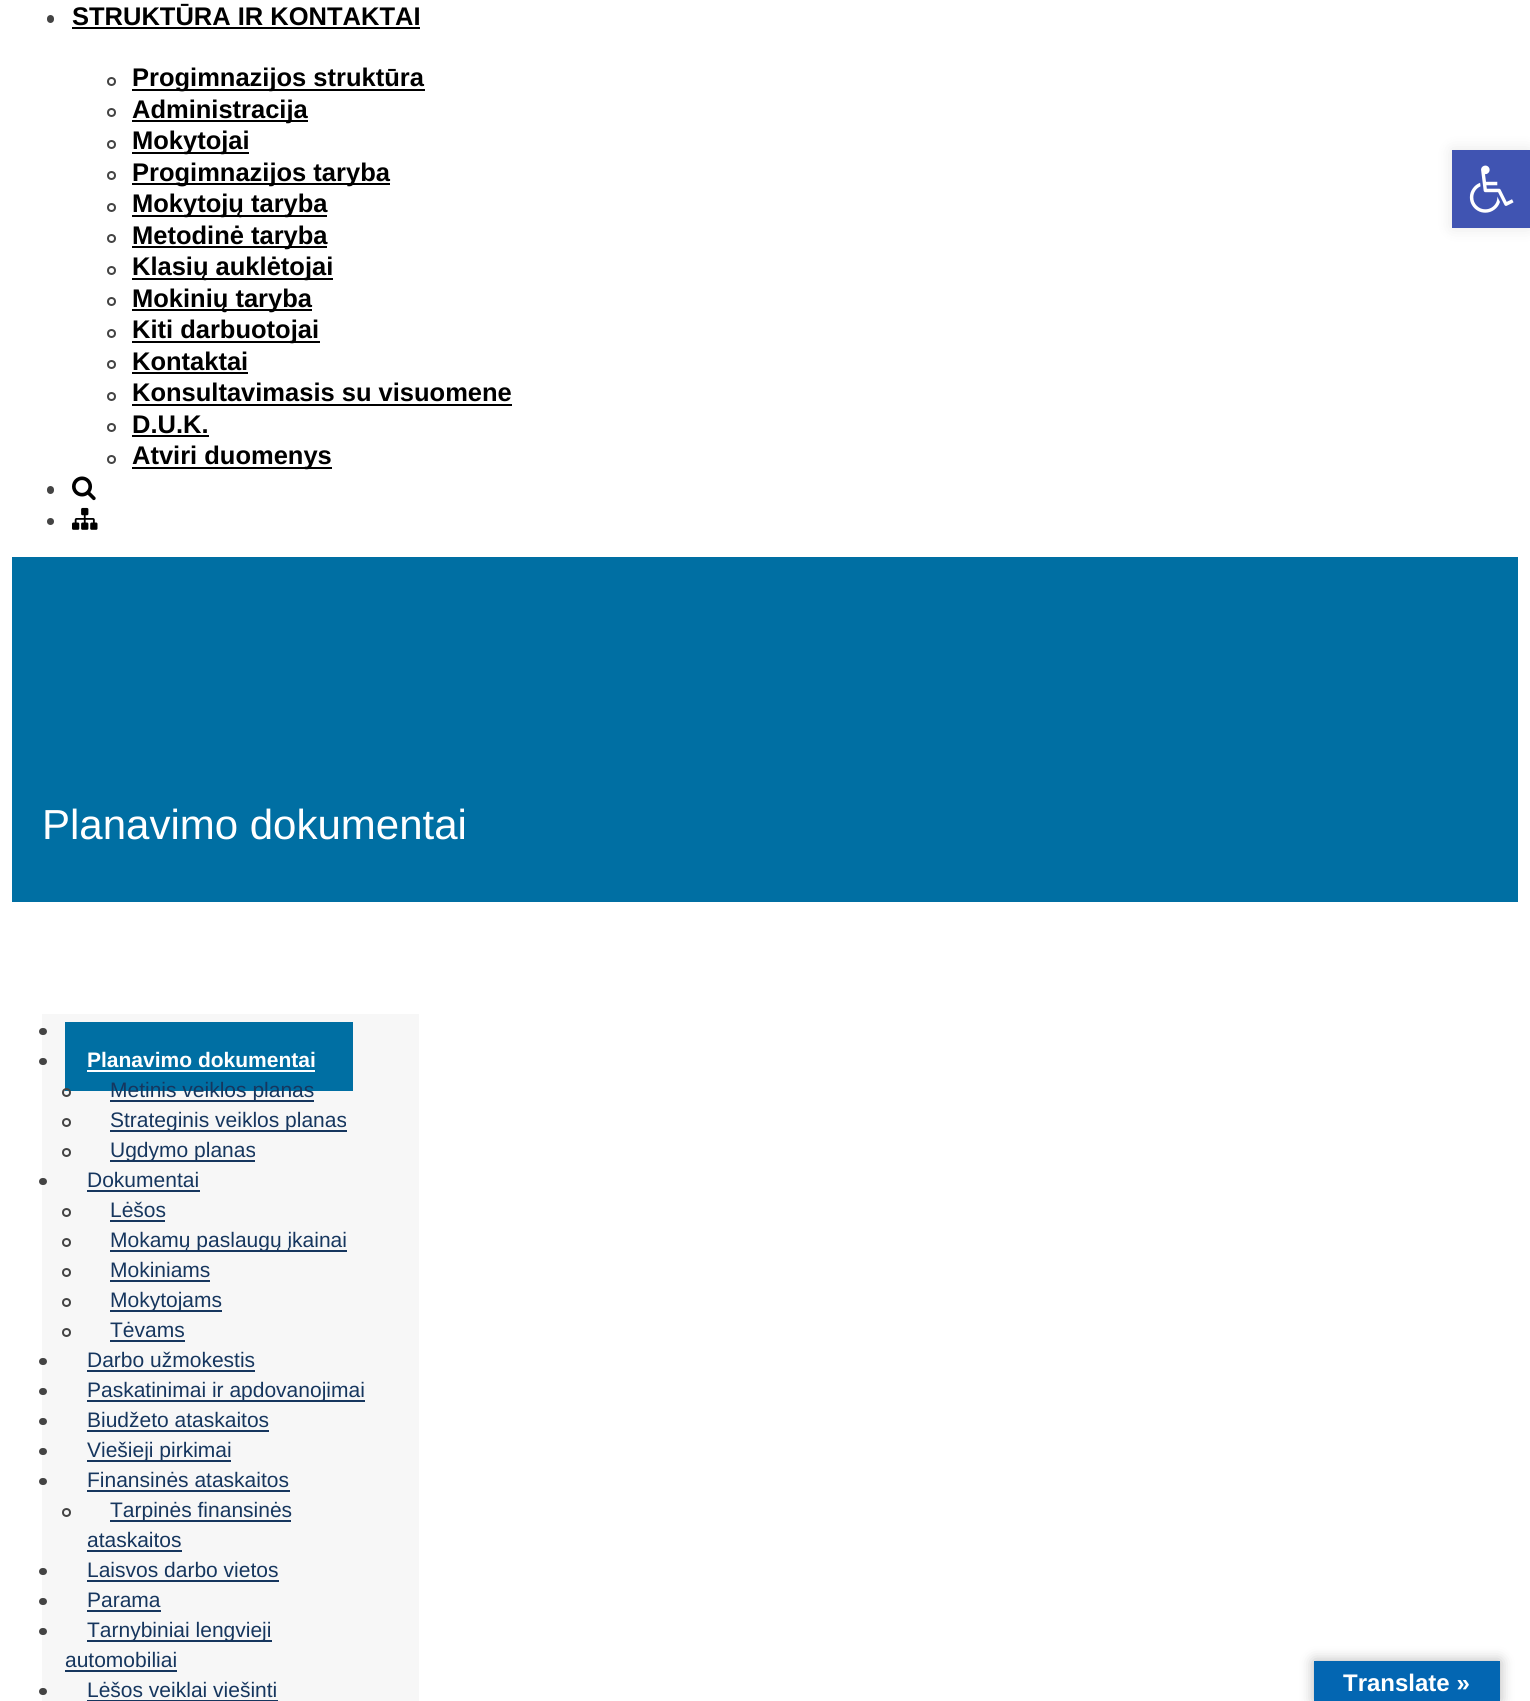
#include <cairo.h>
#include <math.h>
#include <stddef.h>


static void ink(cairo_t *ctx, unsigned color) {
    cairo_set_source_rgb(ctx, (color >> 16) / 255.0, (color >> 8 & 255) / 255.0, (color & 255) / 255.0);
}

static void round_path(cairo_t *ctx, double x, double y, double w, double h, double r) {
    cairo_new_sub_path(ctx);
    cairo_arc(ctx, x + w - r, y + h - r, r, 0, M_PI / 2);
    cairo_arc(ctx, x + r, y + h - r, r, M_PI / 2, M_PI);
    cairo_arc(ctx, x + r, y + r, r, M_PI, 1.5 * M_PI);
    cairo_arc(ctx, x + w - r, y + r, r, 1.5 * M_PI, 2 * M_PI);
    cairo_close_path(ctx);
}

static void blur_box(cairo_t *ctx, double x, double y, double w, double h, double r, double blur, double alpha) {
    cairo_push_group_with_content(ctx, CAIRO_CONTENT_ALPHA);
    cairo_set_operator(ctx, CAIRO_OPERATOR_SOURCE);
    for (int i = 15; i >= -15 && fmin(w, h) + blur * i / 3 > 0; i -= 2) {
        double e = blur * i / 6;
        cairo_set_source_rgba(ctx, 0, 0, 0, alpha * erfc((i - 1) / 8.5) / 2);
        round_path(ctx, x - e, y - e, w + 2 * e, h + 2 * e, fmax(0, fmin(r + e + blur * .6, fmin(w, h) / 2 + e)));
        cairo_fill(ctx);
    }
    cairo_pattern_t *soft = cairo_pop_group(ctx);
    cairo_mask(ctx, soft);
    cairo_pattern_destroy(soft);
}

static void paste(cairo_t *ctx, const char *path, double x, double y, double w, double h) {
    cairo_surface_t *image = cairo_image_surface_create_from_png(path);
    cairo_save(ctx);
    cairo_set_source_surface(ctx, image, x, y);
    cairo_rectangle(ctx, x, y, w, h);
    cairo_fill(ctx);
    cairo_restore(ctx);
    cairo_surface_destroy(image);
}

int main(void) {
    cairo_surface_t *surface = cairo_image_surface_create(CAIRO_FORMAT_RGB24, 1530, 1701);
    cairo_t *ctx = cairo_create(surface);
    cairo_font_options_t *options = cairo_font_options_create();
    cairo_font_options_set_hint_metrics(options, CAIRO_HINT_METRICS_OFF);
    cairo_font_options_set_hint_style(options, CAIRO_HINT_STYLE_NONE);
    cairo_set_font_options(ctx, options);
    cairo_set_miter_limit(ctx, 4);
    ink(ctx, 0xFFFFFF);
    cairo_paint(ctx);
    ink(ctx, 0x444444);
    round_path(ctx, 47, 15, 7, 8, 3.5);
    cairo_fill(ctx);
    cairo_select_font_face(ctx, "Liberation Sans", CAIRO_FONT_SLANT_NORMAL, CAIRO_FONT_WEIGHT_BOLD);
    cairo_set_font_size(ctx, 25.5);
    ink(ctx, 0x000000);
    cairo_move_to(ctx, 72, 25);
    cairo_show_text(ctx, "STRUKTŪRA IR KONTAKTAI");
    cairo_rectangle(ctx, 72, 27, 348, 2);
    cairo_fill(ctx);
    cairo_arc(ctx, 111.5, 81.5, 3.5, 0, 2 * M_PI);
    ink(ctx, 0x444444);
    cairo_stroke(ctx);
    ink(ctx, 0x000000);
    cairo_rectangle(ctx, 132, 89, 293, 2);
    cairo_fill(ctx);
    cairo_move_to(ctx, 132, 86);
    cairo_show_text(ctx, "Progimnazijos struktūra");
    cairo_new_path(ctx);
    cairo_arc(ctx, 111.5, 112.5, 3.5, 0, 2 * M_PI);
    ink(ctx, 0x444444);
    cairo_stroke(ctx);
    ink(ctx, 0x000000);
    cairo_rectangle(ctx, 132, 120, 176, 2);
    cairo_fill(ctx);
    cairo_move_to(ctx, 132, 118);
    cairo_show_text(ctx, "Administracija");
    cairo_new_path(ctx);
    cairo_arc(ctx, 111.5, 144.5, 3.5, 0, 2 * M_PI);
    ink(ctx, 0x444444);
    cairo_stroke(ctx);
    ink(ctx, 0x000000);
    cairo_rectangle(ctx, 132, 152, 117, 2);
    cairo_fill(ctx);
    cairo_move_to(ctx, 132, 149);
    cairo_show_text(ctx, "Mokytojai");
    cairo_new_path(ctx);
    cairo_arc(ctx, 111.5, 175.5, 3.5, 0, 2 * M_PI);
    ink(ctx, 0x444444);
    cairo_stroke(ctx);
    ink(ctx, 0x000000);
    cairo_rectangle(ctx, 132, 183, 258, 2);
    cairo_fill(ctx);
    cairo_move_to(ctx, 132, 181);
    cairo_show_text(ctx, "Progimnazijos taryba");
    cairo_new_path(ctx);
    cairo_arc(ctx, 111.5, 207.5, 3.5, 0, 2 * M_PI);
    ink(ctx, 0x444444);
    cairo_stroke(ctx);
    ink(ctx, 0x000000);
    cairo_rectangle(ctx, 132, 215, 195, 2);
    cairo_fill(ctx);
    cairo_move_to(ctx, 132, 212);
    cairo_show_text(ctx, "Mokytojų taryba");
    cairo_new_path(ctx);
    cairo_arc(ctx, 111.5, 238.5, 3.5, 0, 2 * M_PI);
    ink(ctx, 0x444444);
    cairo_stroke(ctx);
    ink(ctx, 0x000000);
    cairo_rectangle(ctx, 132, 246, 195, 2);
    cairo_fill(ctx);
    cairo_move_to(ctx, 132, 244);
    cairo_show_text(ctx, "Metodinė taryba");
    cairo_new_path(ctx);
    cairo_arc(ctx, 111.5, 270.5, 3.5, 0, 2 * M_PI);
    ink(ctx, 0x444444);
    cairo_stroke(ctx);
    ink(ctx, 0x000000);
    cairo_rectangle(ctx, 132, 278, 201, 2);
    cairo_fill(ctx);
    cairo_move_to(ctx, 132, 275);
    cairo_show_text(ctx, "Klasių auklėtojai");
    cairo_new_path(ctx);
    cairo_arc(ctx, 111.5, 301.5, 3.5, 0, 2 * M_PI);
    ink(ctx, 0x444444);
    cairo_stroke(ctx);
    ink(ctx, 0x000000);
    cairo_rectangle(ctx, 132, 309, 180, 2);
    cairo_fill(ctx);
    cairo_move_to(ctx, 132, 307);
    cairo_show_text(ctx, "Mokinių taryba");
    cairo_new_path(ctx);
    cairo_arc(ctx, 111.5, 333.5, 3.5, 0, 2 * M_PI);
    ink(ctx, 0x444444);
    cairo_stroke(ctx);
    ink(ctx, 0x000000);
    cairo_rectangle(ctx, 132, 341, 188, 2);
    cairo_fill(ctx);
    cairo_move_to(ctx, 132, 338);
    cairo_show_text(ctx, "Kiti darbuotojai");
    cairo_new_path(ctx);
    cairo_arc(ctx, 111.5, 364.5, 3.5, 0, 2 * M_PI);
    ink(ctx, 0x444444);
    cairo_stroke(ctx);
    ink(ctx, 0x000000);
    cairo_move_to(ctx, 132, 370);
    cairo_show_text(ctx, "Kontaktai");
    cairo_rectangle(ctx, 132, 372, 116, 2);
    cairo_fill(ctx);
    cairo_arc(ctx, 111.5, 396.5, 3.5, 0, 2 * M_PI);
    ink(ctx, 0x444444);
    cairo_stroke(ctx);
    ink(ctx, 0x000000);
    cairo_move_to(ctx, 132, 401);
    cairo_show_text(ctx, "Konsultavimasis su visuomene");
    cairo_rectangle(ctx, 132, 404, 380, 2);
    cairo_fill(ctx);
    cairo_arc(ctx, 111.5, 427.5, 3.5, 0, 2 * M_PI);
    ink(ctx, 0x444444);
    cairo_stroke(ctx);
    ink(ctx, 0x000000);
    cairo_move_to(ctx, 132, 433);
    cairo_show_text(ctx, "D.U.K.");
    cairo_rectangle(ctx, 132, 435, 77, 2);
    cairo_fill(ctx);
    cairo_arc(ctx, 111.5, 459.5, 3.5, 0, 2 * M_PI);
    ink(ctx, 0x444444);
    cairo_stroke(ctx);
    ink(ctx, 0x000000);
    cairo_rectangle(ctx, 132, 467, 200, 2);
    cairo_fill(ctx);
    cairo_move_to(ctx, 132, 464);
    cairo_show_text(ctx, "Atviri duomenys");
    ink(ctx, 0x444444);
    round_path(ctx, 47, 486, 7, 8, 3.5);
    cairo_fill(ctx);
    paste(ctx, "media/1.png", 72, 476, 24, 25);
    cairo_arc(ctx, 50.5, 521.5, 3.5, 0, 2 * M_PI);
    cairo_fill(ctx);
    paste(ctx, "media/2.png", 72, 507, 26, 23);
    ink(ctx, 0x000000);
    blur_box(ctx, 1452, 150, 78, 78, 0, 7.5, 0.1);
    ink(ctx, 0x4054B2);
    cairo_rectangle(ctx, 1452, 150, 78, 78);
    cairo_fill(ctx);
    paste(ctx, "media/3.png", 1469, 165, 45, 48);
    ink(ctx, 0x006FA3);
    cairo_rectangle(ctx, 12, 557, 1506, 345);
    cairo_fill(ctx);
    cairo_select_font_face(ctx, "Liberation Sans", CAIRO_FONT_SLANT_NORMAL, CAIRO_FONT_WEIGHT_NORMAL);
    cairo_set_font_size(ctx, 42);
    ink(ctx, 0xFFFFFF);
    cairo_move_to(ctx, 42, 839);
    cairo_show_text(ctx, "Planavimo dokumentai");
    ink(ctx, 0xF7F7F7);
    cairo_rectangle(ctx, 42, 1014, 377, 687);
    cairo_fill(ctx);
    ink(ctx, 0x444444);
    round_path(ctx, 39, 1028, 8, 7, 3.5);
    cairo_fill(ctx);
    round_path(ctx, 39, 1058, 8, 7, 3.5);
    cairo_fill(ctx);
    ink(ctx, 0x006FA3);
    cairo_rectangle(ctx, 65, 1022, 288, 69);
    cairo_fill(ctx);
    cairo_select_font_face(ctx, "Liberation Sans", CAIRO_FONT_SLANT_NORMAL, CAIRO_FONT_WEIGHT_BOLD);
    cairo_set_font_size(ctx, 21);
    ink(ctx, 0xFFFFFF);
    cairo_move_to(ctx, 87, 1067);
    cairo_show_text(ctx, "Planavimo dokumentai");
    cairo_rectangle(ctx, 87, 1070, 228, 2);
    cairo_fill(ctx);
    cairo_arc(ctx, 66.5, 1092.5, 3.5, 0, 2 * M_PI);
    ink(ctx, 0x444444);
    cairo_stroke(ctx);
    ink(ctx, 0x16365E);
    cairo_rectangle(ctx, 110, 1100, 204, 2);
    cairo_fill(ctx);
    cairo_select_font_face(ctx, "Liberation Sans", CAIRO_FONT_SLANT_NORMAL, CAIRO_FONT_WEIGHT_NORMAL);
    cairo_move_to(ctx, 110, 1097);
    cairo_show_text(ctx, "Metinis veiklos planas");
    cairo_new_path(ctx);
    cairo_arc(ctx, 66.5, 1122.5, 3.5, 0, 2 * M_PI);
    ink(ctx, 0x444444);
    cairo_stroke(ctx);
    ink(ctx, 0x16365E);
    cairo_rectangle(ctx, 110, 1130, 237, 2);
    cairo_fill(ctx);
    cairo_move_to(ctx, 110, 1127);
    cairo_show_text(ctx, "Strateginis veiklos planas");
    cairo_new_path(ctx);
    cairo_arc(ctx, 66.5, 1152.5, 3.5, 0, 2 * M_PI);
    ink(ctx, 0x444444);
    cairo_stroke(ctx);
    ink(ctx, 0x16365E);
    cairo_rectangle(ctx, 110, 1160, 145, 2);
    cairo_fill(ctx);
    cairo_move_to(ctx, 110, 1157);
    cairo_show_text(ctx, "Ugdymo planas");
    ink(ctx, 0x444444);
    round_path(ctx, 39, 1178, 8, 7, 3.5);
    cairo_fill(ctx);
    ink(ctx, 0x16365E);
    cairo_move_to(ctx, 87, 1187);
    cairo_show_text(ctx, "Dokumentai");
    cairo_rectangle(ctx, 87, 1190, 113, 2);
    cairo_fill(ctx);
    cairo_arc(ctx, 66.5, 1212.5, 3.5, 0, 2 * M_PI);
    ink(ctx, 0x444444);
    cairo_stroke(ctx);
    ink(ctx, 0x16365E);
    cairo_move_to(ctx, 110, 1217);
    cairo_show_text(ctx, "Lėšos");
    cairo_rectangle(ctx, 110, 1220, 55, 2);
    cairo_fill(ctx);
    cairo_arc(ctx, 66.5, 1242.5, 3.5, 0, 2 * M_PI);
    ink(ctx, 0x444444);
    cairo_stroke(ctx);
    ink(ctx, 0x16365E);
    cairo_rectangle(ctx, 110, 1250, 237, 2);
    cairo_fill(ctx);
    cairo_move_to(ctx, 110, 1247);
    cairo_show_text(ctx, "Mokamų paslaugų įkainai");
    cairo_new_path(ctx);
    cairo_arc(ctx, 66.5, 1272.5, 3.5, 0, 2 * M_PI);
    ink(ctx, 0x444444);
    cairo_stroke(ctx);
    ink(ctx, 0x16365E);
    cairo_move_to(ctx, 110, 1277);
    cairo_show_text(ctx, "Mokiniams");
    cairo_rectangle(ctx, 110, 1280, 100, 2);
    cairo_fill(ctx);
    cairo_arc(ctx, 66.5, 1302.5, 3.5, 0, 2 * M_PI);
    ink(ctx, 0x444444);
    cairo_stroke(ctx);
    ink(ctx, 0x16365E);
    cairo_rectangle(ctx, 110, 1310, 112, 2);
    cairo_fill(ctx);
    cairo_move_to(ctx, 110, 1307);
    cairo_show_text(ctx, "Mokytojams");
    cairo_new_path(ctx);
    cairo_arc(ctx, 66.5, 1332.5, 3.5, 0, 2 * M_PI);
    ink(ctx, 0x444444);
    cairo_stroke(ctx);
    ink(ctx, 0x16365E);
    cairo_move_to(ctx, 110, 1337);
    cairo_show_text(ctx, "Tėvams");
    cairo_rectangle(ctx, 110, 1340, 75, 2);
    cairo_fill(ctx);
    ink(ctx, 0x444444);
    round_path(ctx, 39, 1358, 8, 7, 3.5);
    cairo_fill(ctx);
    ink(ctx, 0x16365E);
    cairo_move_to(ctx, 87, 1367);
    cairo_show_text(ctx, "Darbo užmokestis");
    cairo_rectangle(ctx, 87, 1370, 168, 2);
    cairo_fill(ctx);
    ink(ctx, 0x444444);
    round_path(ctx, 39, 1388, 8, 7, 3.5);
    cairo_fill(ctx);
    ink(ctx, 0x16365E);
    cairo_rectangle(ctx, 87, 1400, 278, 2);
    cairo_fill(ctx);
    cairo_move_to(ctx, 87, 1397);
    cairo_show_text(ctx, "Paskatinimai ir apdovanojimai");
    ink(ctx, 0x444444);
    round_path(ctx, 39, 1418, 8, 7, 3.5);
    cairo_fill(ctx);
    ink(ctx, 0x16365E);
    cairo_move_to(ctx, 87, 1427);
    cairo_show_text(ctx, "Biudžeto ataskaitos");
    cairo_rectangle(ctx, 87, 1430, 182, 2);
    cairo_fill(ctx);
    ink(ctx, 0x444444);
    round_path(ctx, 39, 1448, 8, 7, 3.5);
    cairo_fill(ctx);
    ink(ctx, 0x16365E);
    cairo_rectangle(ctx, 87, 1460, 144, 2);
    cairo_fill(ctx);
    cairo_move_to(ctx, 87, 1457);
    cairo_show_text(ctx, "Viešieji pirkimai");
    ink(ctx, 0x444444);
    round_path(ctx, 39, 1478, 8, 7, 3.5);
    cairo_fill(ctx);
    ink(ctx, 0x16365E);
    cairo_move_to(ctx, 87, 1487);
    cairo_show_text(ctx, "Finansinės ataskaitos");
    cairo_rectangle(ctx, 87, 1490, 203, 2);
    cairo_fill(ctx);
    cairo_arc(ctx, 66.5, 1512.5, 3.5, 0, 2 * M_PI);
    ink(ctx, 0x444444);
    cairo_stroke(ctx);
    ink(ctx, 0x16365E);
    cairo_rectangle(ctx, 110, 1520, 181, 2);
    cairo_fill(ctx);
    cairo_move_to(ctx, 110, 1517);
    cairo_show_text(ctx, "Tarpinės finansinės");
    cairo_move_to(ctx, 87, 1547);
    cairo_show_text(ctx, "ataskaitos");
    cairo_rectangle(ctx, 87, 1550, 95, 2);
    cairo_fill(ctx);
    ink(ctx, 0x444444);
    round_path(ctx, 39, 1568, 8, 7, 3.5);
    cairo_fill(ctx);
    ink(ctx, 0x16365E);
    cairo_move_to(ctx, 87, 1577);
    cairo_show_text(ctx, "Laisvos darbo vietos");
    cairo_rectangle(ctx, 87, 1580, 192, 2);
    cairo_fill(ctx);
    ink(ctx, 0x444444);
    round_path(ctx, 39, 1598, 8, 7, 3.5);
    cairo_fill(ctx);
    ink(ctx, 0x16365E);
    cairo_move_to(ctx, 87, 1607);
    cairo_show_text(ctx, "Parama");
    cairo_rectangle(ctx, 87, 1610, 74, 2);
    cairo_fill(ctx);
    ink(ctx, 0x444444);
    round_path(ctx, 39, 1628, 8, 7, 3.5);
    cairo_fill(ctx);
    ink(ctx, 0x16365E);
    cairo_rectangle(ctx, 87, 1640, 185, 2);
    cairo_fill(ctx);
    cairo_move_to(ctx, 87, 1637);
    cairo_show_text(ctx, "Tarnybiniai lengvieji");
    cairo_move_to(ctx, 65, 1667);
    cairo_show_text(ctx, "automobiliai");
    cairo_rectangle(ctx, 65, 1670, 112, 2);
    cairo_fill(ctx);
    ink(ctx, 0x444444);
    round_path(ctx, 39, 1688, 8, 7, 3.5);
    cairo_fill(ctx);
    ink(ctx, 0x16365E);
    cairo_move_to(ctx, 87, 1697);
    cairo_show_text(ctx, "Lėšos veiklai viešinti");
    cairo_rectangle(ctx, 87, 1700, 191, 1);
    cairo_fill(ctx);
    ink(ctx, 0x000000);
    blur_box(ctx, 1314, 1661, 186, 40, 0, 7, 0.3);
    ink(ctx, 0x0366B2);
    cairo_rectangle(ctx, 1314, 1661, 186, 40);
    cairo_fill(ctx);
    cairo_select_font_face(ctx, "Liberation Sans", CAIRO_FONT_SLANT_NORMAL, CAIRO_FONT_WEIGHT_BOLD);
    cairo_set_font_size(ctx, 24);
    ink(ctx, 0xFFFFFF);
    cairo_move_to(ctx, 1343, 1691);
    cairo_show_text(ctx, "Translate »");
    cairo_surface_write_to_png(surface, "image.png");
    cairo_font_options_destroy(options);
    cairo_destroy(ctx);
    cairo_surface_destroy(surface);
    return 0;
}
